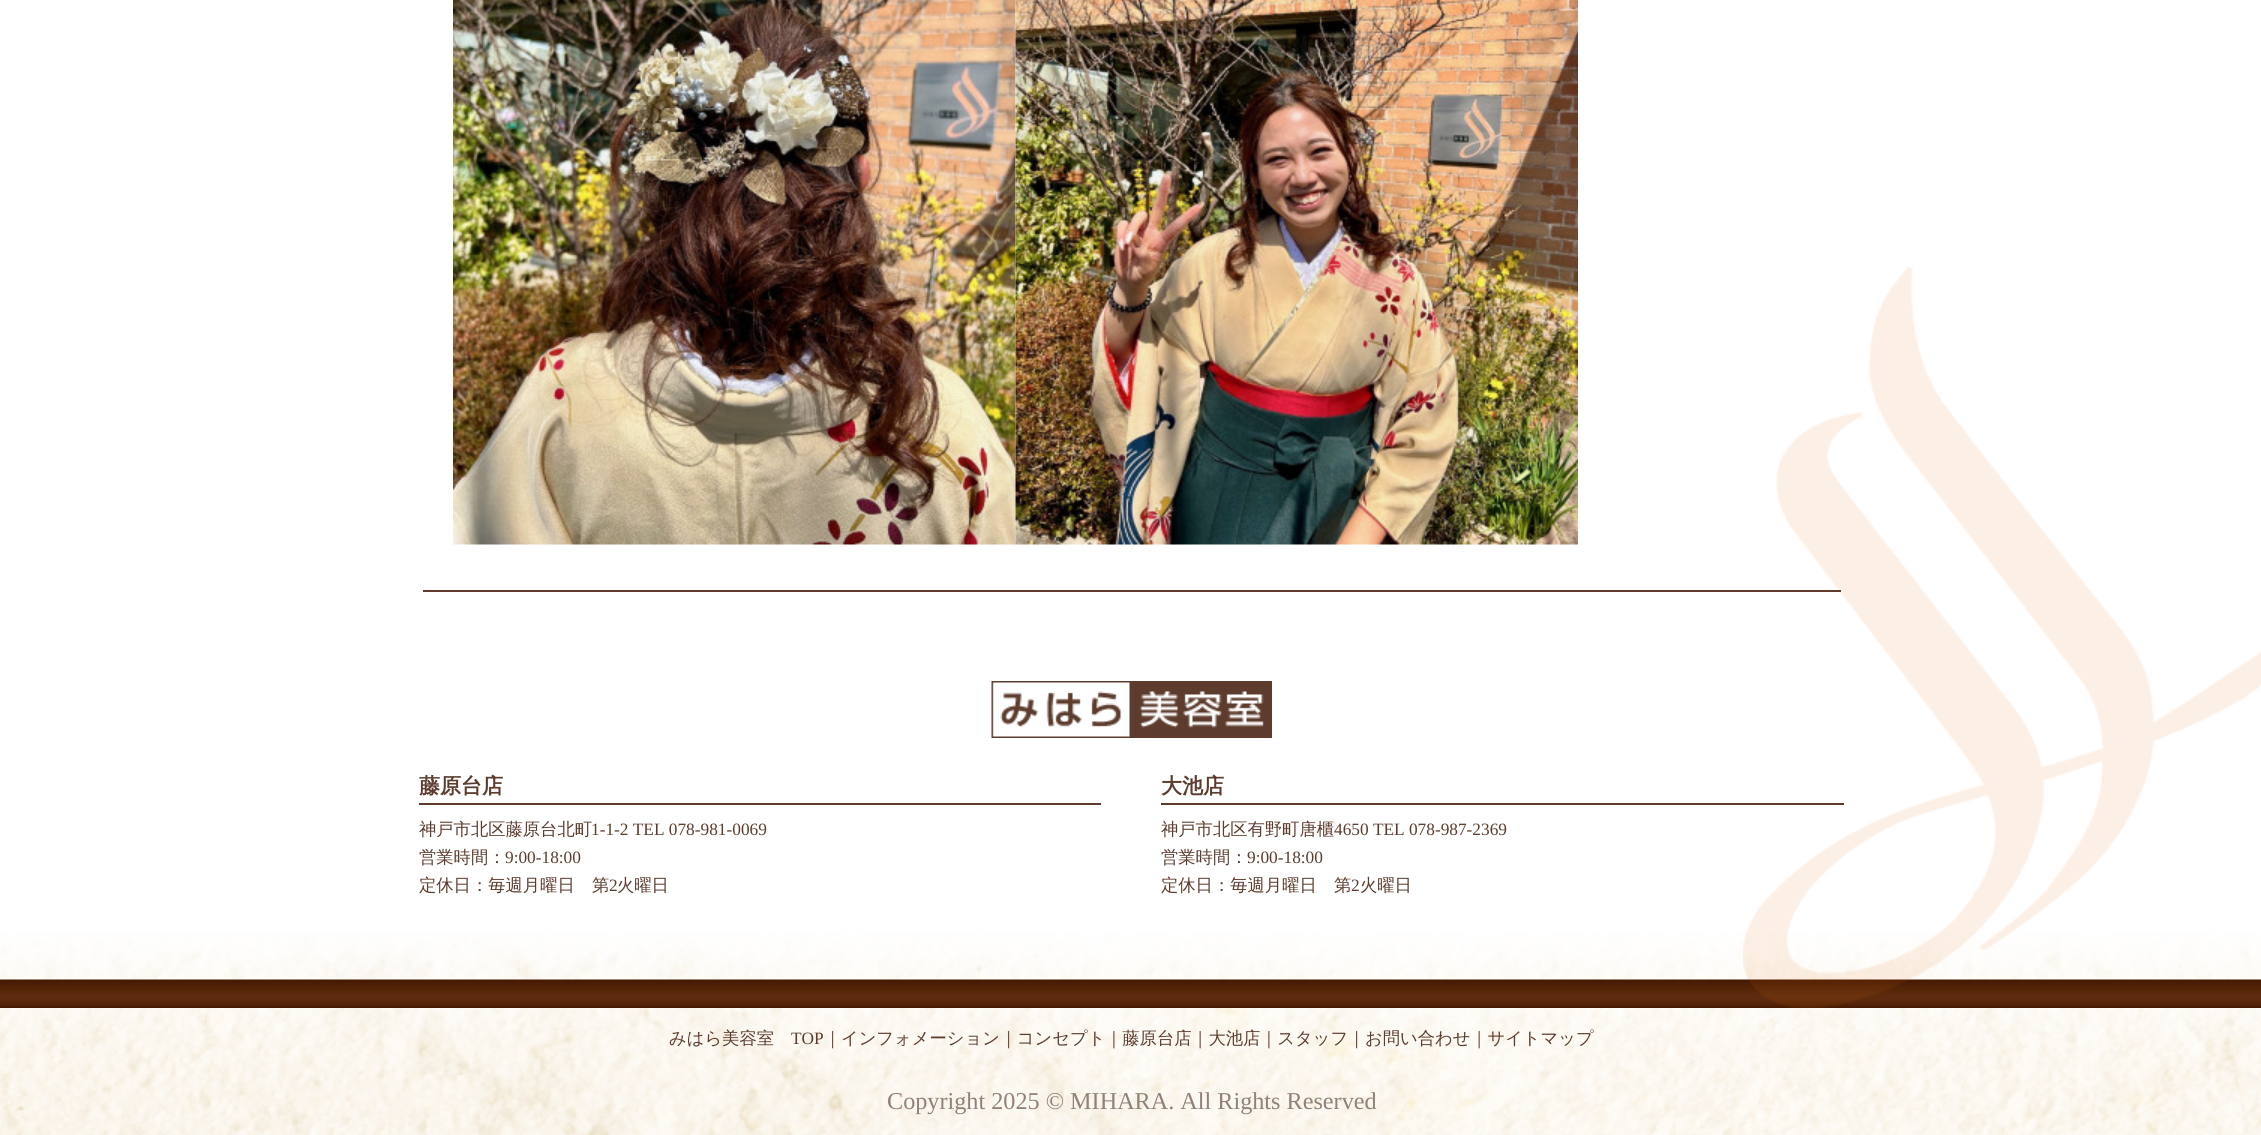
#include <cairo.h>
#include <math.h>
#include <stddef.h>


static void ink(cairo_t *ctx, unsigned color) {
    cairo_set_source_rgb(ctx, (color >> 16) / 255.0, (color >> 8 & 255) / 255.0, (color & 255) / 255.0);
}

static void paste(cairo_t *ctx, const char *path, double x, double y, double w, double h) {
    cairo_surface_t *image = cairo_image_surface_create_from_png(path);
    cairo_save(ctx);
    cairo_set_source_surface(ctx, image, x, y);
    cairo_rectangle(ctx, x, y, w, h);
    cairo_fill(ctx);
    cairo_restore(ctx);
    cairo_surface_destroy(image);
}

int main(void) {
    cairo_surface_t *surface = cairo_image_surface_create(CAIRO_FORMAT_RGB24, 2261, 1135);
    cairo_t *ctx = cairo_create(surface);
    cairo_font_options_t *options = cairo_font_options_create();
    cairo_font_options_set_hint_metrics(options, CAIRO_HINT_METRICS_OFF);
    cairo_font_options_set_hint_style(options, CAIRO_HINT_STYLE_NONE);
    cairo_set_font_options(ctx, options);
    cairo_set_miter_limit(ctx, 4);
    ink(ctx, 0xFFFFFF);
    cairo_paint(ctx);
    paste(ctx, "media/1.png", 0, 932, 2261, 203);
    paste(ctx, "media/6.png", 0, 979, 2261, 29);
    paste(ctx, "media/4.png", 1743, 267, 518, 741);
    ink(ctx, 0x5D3C2E);
    cairo_rectangle(ctx, 423, 590, 1418, 2);
    cairo_fill(ctx);
    paste(ctx, "media/2.png", 453, 0, 563, 545);
    paste(ctx, "media/3.png", 1015, 0, 563, 545);
    paste(ctx, "media/5.png", 991, 681, 281, 57);
    cairo_rectangle(ctx, 419, 803, 682, 2);
    cairo_fill(ctx);
    cairo_select_font_face(ctx, "WenQuanYi Zen Hei", CAIRO_FONT_SLANT_NORMAL, CAIRO_FONT_WEIGHT_BOLD);
    cairo_set_font_size(ctx, 21);
    cairo_move_to(ctx, 419, 793);
    cairo_show_text(ctx, "藤原台店");
    cairo_select_font_face(ctx, "WenQuanYi Zen Hei Medium", CAIRO_FONT_SLANT_NORMAL, CAIRO_FONT_WEIGHT_NORMAL);
    cairo_set_font_size(ctx, 17.3);
    cairo_move_to(ctx, 419, 835);
    cairo_show_text(ctx, "神戸市北区藤原台北町");
    cairo_select_font_face(ctx, "Liberation Serif", CAIRO_FONT_SLANT_NORMAL, CAIRO_FONT_WEIGHT_NORMAL);
    cairo_move_to(ctx, 591, 835);
    cairo_show_text(ctx, "1-1-2 TEL 078-981-0069");
    cairo_select_font_face(ctx, "WenQuanYi Zen Hei Medium", CAIRO_FONT_SLANT_NORMAL, CAIRO_FONT_WEIGHT_NORMAL);
    cairo_move_to(ctx, 419, 863);
    cairo_show_text(ctx, "営業時間：");
    cairo_select_font_face(ctx, "Liberation Serif", CAIRO_FONT_SLANT_NORMAL, CAIRO_FONT_WEIGHT_NORMAL);
    cairo_move_to(ctx, 505, 863);
    cairo_show_text(ctx, "9:00-18:00");
    cairo_select_font_face(ctx, "WenQuanYi Zen Hei Medium", CAIRO_FONT_SLANT_NORMAL, CAIRO_FONT_WEIGHT_NORMAL);
    cairo_move_to(ctx, 419, 891);
    cairo_show_text(ctx, "定休日：毎週月曜日　第");
    cairo_select_font_face(ctx, "Liberation Serif", CAIRO_FONT_SLANT_NORMAL, CAIRO_FONT_WEIGHT_NORMAL);
    cairo_move_to(ctx, 609, 891);
    cairo_show_text(ctx, "2");
    cairo_select_font_face(ctx, "WenQuanYi Zen Hei Medium", CAIRO_FONT_SLANT_NORMAL, CAIRO_FONT_WEIGHT_NORMAL);
    cairo_move_to(ctx, 617, 891);
    cairo_show_text(ctx, "火曜日");
    cairo_rectangle(ctx, 1161, 803, 683, 2);
    cairo_fill(ctx);
    cairo_select_font_face(ctx, "WenQuanYi Zen Hei", CAIRO_FONT_SLANT_NORMAL, CAIRO_FONT_WEIGHT_BOLD);
    cairo_set_font_size(ctx, 21);
    cairo_move_to(ctx, 1161, 793);
    cairo_show_text(ctx, "大池店");
    cairo_select_font_face(ctx, "WenQuanYi Zen Hei Medium", CAIRO_FONT_SLANT_NORMAL, CAIRO_FONT_WEIGHT_NORMAL);
    cairo_set_font_size(ctx, 17.3);
    cairo_move_to(ctx, 1161, 835);
    cairo_show_text(ctx, "神戸市北区有野町唐櫃");
    cairo_select_font_face(ctx, "Liberation Serif", CAIRO_FONT_SLANT_NORMAL, CAIRO_FONT_WEIGHT_NORMAL);
    cairo_move_to(ctx, 1334, 835);
    cairo_show_text(ctx, "4650 TEL 078-987-2369");
    cairo_select_font_face(ctx, "WenQuanYi Zen Hei Medium", CAIRO_FONT_SLANT_NORMAL, CAIRO_FONT_WEIGHT_NORMAL);
    cairo_move_to(ctx, 1161, 863);
    cairo_show_text(ctx, "営業時間：");
    cairo_select_font_face(ctx, "Liberation Serif", CAIRO_FONT_SLANT_NORMAL, CAIRO_FONT_WEIGHT_NORMAL);
    cairo_move_to(ctx, 1247, 863);
    cairo_show_text(ctx, "9:00-18:00");
    cairo_select_font_face(ctx, "WenQuanYi Zen Hei Medium", CAIRO_FONT_SLANT_NORMAL, CAIRO_FONT_WEIGHT_NORMAL);
    cairo_move_to(ctx, 1161, 891);
    cairo_show_text(ctx, "定休日：毎週月曜日　第");
    cairo_select_font_face(ctx, "Liberation Serif", CAIRO_FONT_SLANT_NORMAL, CAIRO_FONT_WEIGHT_NORMAL);
    cairo_move_to(ctx, 1351, 891);
    cairo_show_text(ctx, "2");
    cairo_select_font_face(ctx, "WenQuanYi Zen Hei Medium", CAIRO_FONT_SLANT_NORMAL, CAIRO_FONT_WEIGHT_NORMAL);
    cairo_move_to(ctx, 1360, 891);
    cairo_show_text(ctx, "火曜日");
    cairo_move_to(ctx, 669, 1044);
    cairo_show_text(ctx, "みはら美容室");
    cairo_select_font_face(ctx, "Liberation Serif", CAIRO_FONT_SLANT_NORMAL, CAIRO_FONT_WEIGHT_NORMAL);
    cairo_move_to(ctx, 791, 1044);
    cairo_show_text(ctx, "TOP");
    cairo_select_font_face(ctx, "WenQuanYi Zen Hei Medium", CAIRO_FONT_SLANT_NORMAL, CAIRO_FONT_WEIGHT_NORMAL);
    cairo_move_to(ctx, 824, 1044);
    cairo_show_text(ctx, "｜インフォメーション｜コンセプト｜藤原台店｜大池店｜スタッフ｜お問い合わせ｜サイトマップ");
    cairo_select_font_face(ctx, "Liberation Serif", CAIRO_FONT_SLANT_NORMAL, CAIRO_FONT_WEIGHT_NORMAL);
    cairo_set_font_size(ctx, 24.2);
    ink(ctx, 0x928178);
    cairo_move_to(ctx, 887, 1109);
    cairo_show_text(ctx, "Copyright 2025 © MIHARA. All Rights Reserved");
    cairo_surface_write_to_png(surface, "image.png");
    cairo_font_options_destroy(options);
    cairo_destroy(ctx);
    cairo_surface_destroy(surface);
    return 0;
}
